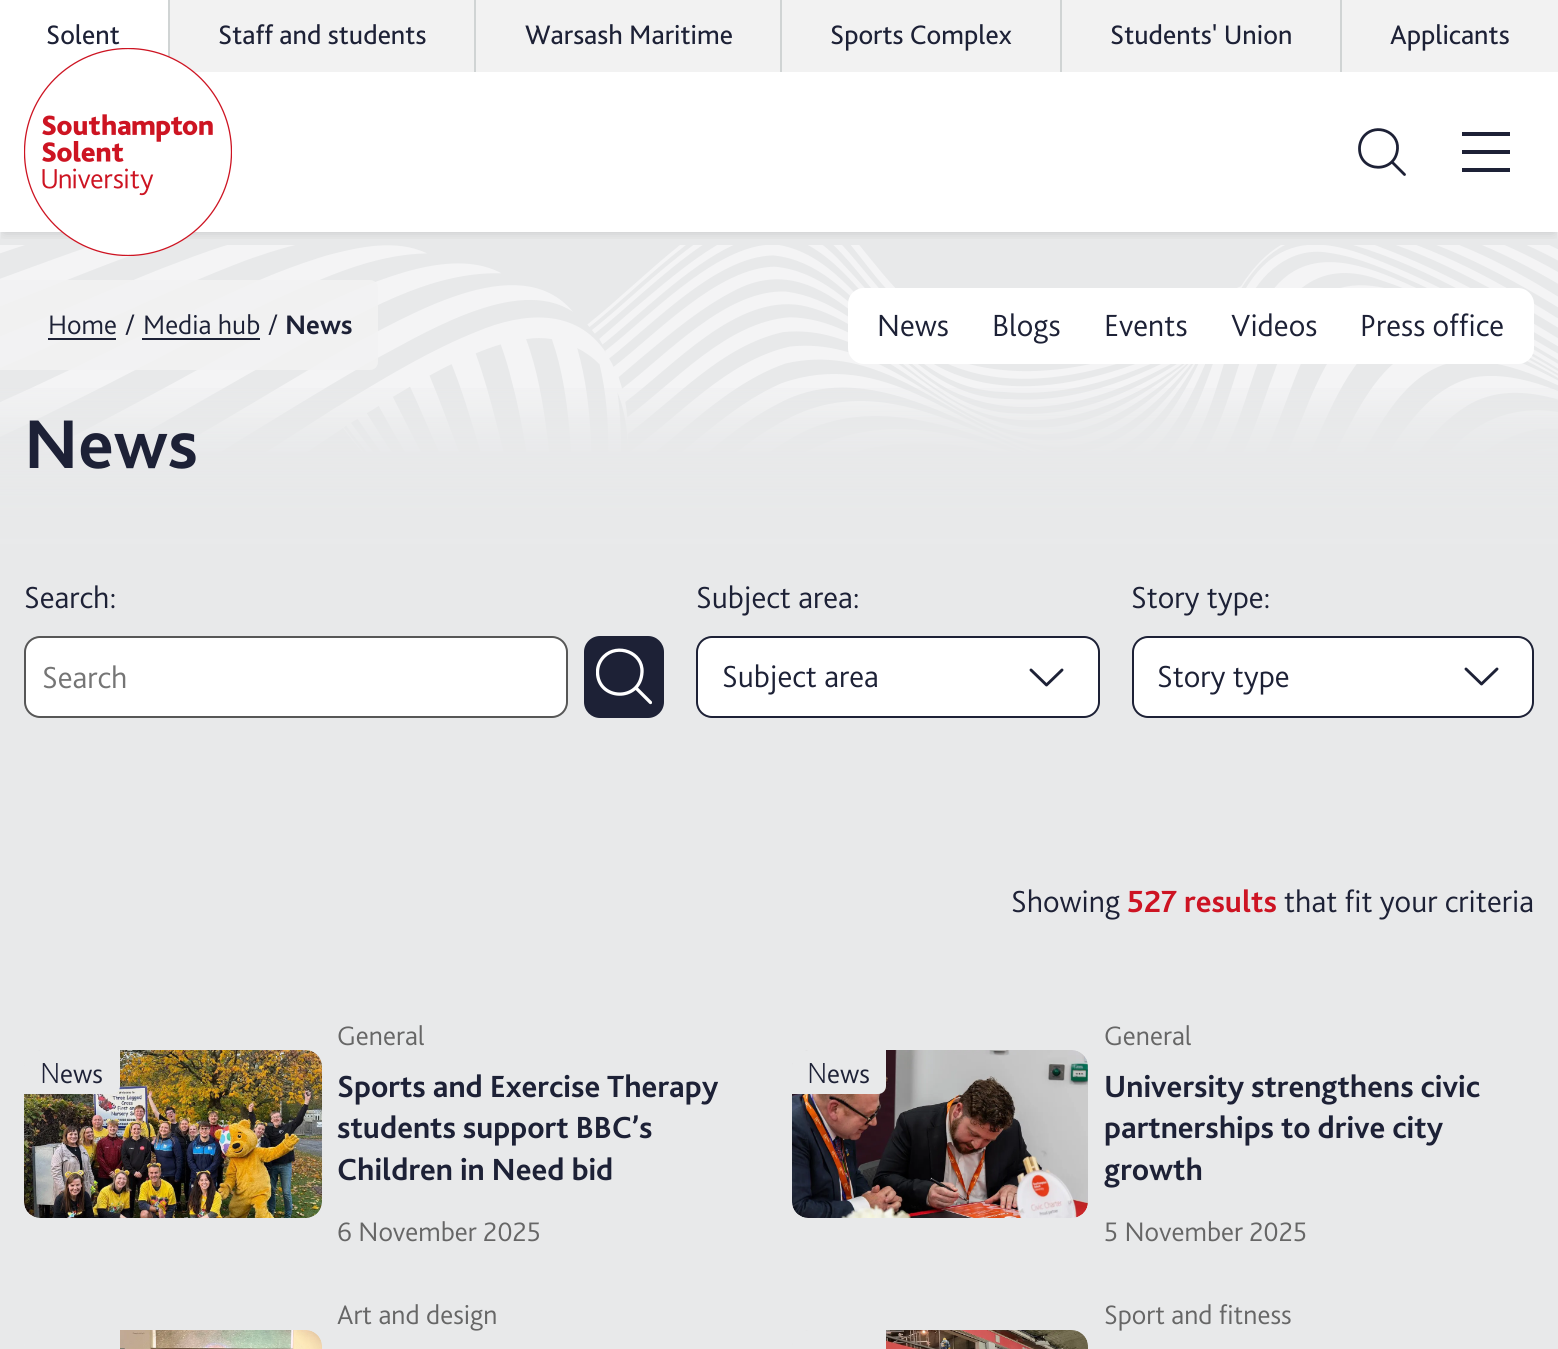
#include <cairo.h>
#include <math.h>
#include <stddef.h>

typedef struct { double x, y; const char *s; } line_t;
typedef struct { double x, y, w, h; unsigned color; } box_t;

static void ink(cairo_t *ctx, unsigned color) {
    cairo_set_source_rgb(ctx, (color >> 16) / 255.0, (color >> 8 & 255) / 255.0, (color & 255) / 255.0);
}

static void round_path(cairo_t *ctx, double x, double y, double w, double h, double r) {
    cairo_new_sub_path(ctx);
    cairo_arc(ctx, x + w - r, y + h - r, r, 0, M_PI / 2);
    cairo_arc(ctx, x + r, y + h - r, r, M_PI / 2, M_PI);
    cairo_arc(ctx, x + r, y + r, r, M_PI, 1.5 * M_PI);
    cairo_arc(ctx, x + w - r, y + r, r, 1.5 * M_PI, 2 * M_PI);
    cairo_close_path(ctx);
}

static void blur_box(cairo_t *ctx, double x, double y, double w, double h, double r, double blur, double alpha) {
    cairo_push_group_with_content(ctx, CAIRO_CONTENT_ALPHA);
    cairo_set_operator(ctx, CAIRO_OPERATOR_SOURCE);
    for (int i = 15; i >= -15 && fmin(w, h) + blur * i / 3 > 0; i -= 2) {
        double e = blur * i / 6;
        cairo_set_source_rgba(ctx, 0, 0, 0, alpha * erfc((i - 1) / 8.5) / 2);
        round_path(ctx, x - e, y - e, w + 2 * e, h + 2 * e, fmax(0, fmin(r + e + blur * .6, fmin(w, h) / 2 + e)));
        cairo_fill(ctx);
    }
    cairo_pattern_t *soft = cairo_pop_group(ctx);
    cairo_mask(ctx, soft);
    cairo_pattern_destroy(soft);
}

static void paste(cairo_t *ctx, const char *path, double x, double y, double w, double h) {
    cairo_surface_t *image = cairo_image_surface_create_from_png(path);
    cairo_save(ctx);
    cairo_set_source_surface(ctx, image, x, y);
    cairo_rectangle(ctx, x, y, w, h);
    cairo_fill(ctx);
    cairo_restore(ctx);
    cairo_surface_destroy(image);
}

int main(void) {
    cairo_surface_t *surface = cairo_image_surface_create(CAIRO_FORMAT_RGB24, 1558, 1349);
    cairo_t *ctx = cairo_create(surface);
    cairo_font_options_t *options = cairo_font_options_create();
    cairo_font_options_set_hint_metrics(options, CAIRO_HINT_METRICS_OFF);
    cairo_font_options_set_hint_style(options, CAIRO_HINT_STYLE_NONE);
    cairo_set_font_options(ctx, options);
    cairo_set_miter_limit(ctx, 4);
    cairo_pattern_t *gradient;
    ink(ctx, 0xFFFFFF);
    cairo_paint(ctx);
    ink(ctx, 0xF2F2F2);
    cairo_rectangle(ctx, 170, 0, 1388, 72);
    cairo_fill(ctx);
    ink(ctx, 0xE8E9EA);
    cairo_rectangle(ctx, 0, 232, 1558, 311);
    cairo_fill(ctx);
    paste(ctx, "media/2.png", 0, 245, 1558, 207);
    cairo_save(ctx);
    cairo_rectangle(ctx, 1, 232, 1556, 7);
    cairo_clip(ctx);
    ink(ctx, 0x000000);
    blur_box(ctx, 4, 80, 1550, 152, 0, 6, 0.15);
    cairo_restore(ctx);
    ink(ctx, 0xFFFFFF);
    cairo_rectangle(ctx, 10, 71, 158, 1);
    cairo_fill(ctx);
    ink(ctx, 0xD0D4D4);
    cairo_rectangle(ctx, 168, 0, 2, 57);
    cairo_fill(ctx);
    cairo_select_font_face(ctx, "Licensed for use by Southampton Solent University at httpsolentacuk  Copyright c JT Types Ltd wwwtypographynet", CAIRO_FONT_SLANT_NORMAL, CAIRO_FONT_WEIGHT_NORMAL);
    cairo_set_font_size(ctx, 28);
    ink(ctx, 0x1D2136);
    cairo_move_to(ctx, 46, 44);
    cairo_show_text(ctx, "Solent");
    ink(ctx, 0xD0D4D4);
    cairo_rectangle(ctx, 474, 0, 2, 72);
    cairo_fill(ctx);
    ink(ctx, 0x1D2136);
    cairo_move_to(ctx, 218, 44);
    cairo_show_text(ctx, "Staff and students");
    ink(ctx, 0xD0D4D4);
    cairo_rectangle(ctx, 780, 0, 2, 72);
    cairo_fill(ctx);
    ink(ctx, 0x1D2136);
    cairo_move_to(ctx, 525, 44);
    cairo_show_text(ctx, "Warsash Maritime");
    ink(ctx, 0xD0D4D4);
    cairo_rectangle(ctx, 1060, 0, 2, 72);
    cairo_fill(ctx);
    ink(ctx, 0x1D2136);
    cairo_move_to(ctx, 830, 44);
    cairo_show_text(ctx, "Sports Complex");
    ink(ctx, 0xD0D4D4);
    cairo_rectangle(ctx, 1340, 0, 2, 72);
    cairo_fill(ctx);
    ink(ctx, 0x1D2136);
    cairo_move_to(ctx, 1110, 44);
    cairo_show_text(ctx, "Students' Union");
    cairo_move_to(ctx, 1390, 44);
    cairo_show_text(ctx, "Applicants");
    paste(ctx, "media/1.png", 24, 48, 208, 208);
    cairo_new_path(ctx);
    cairo_move_to(ctx, 1392.5, 162.5);
    cairo_line_to(ctx, 1404.5, 174.5);
    cairo_close_path(ctx);
    cairo_move_to(ctx, 1359.5, 148.5);
    cairo_curve_to(ctx, 1359.5, 143.5, 1361.5, 138.5, 1365, 135);
    cairo_curve_to(ctx, 1376.5, 123.5, 1398.5, 131.5, 1397.5, 148.5);
    cairo_curve_to(ctx, 1396, 174, 1359.5, 173, 1359.5, 148.5);
    cairo_close_path(ctx);
    cairo_set_line_width(ctx, 2.8);
    cairo_set_line_join(ctx, CAIRO_LINE_JOIN_ROUND);
    cairo_stroke(ctx);
    {
        static const box_t items[] = {
            {1462, 132, 48, 4, 0x1D2136},
            {1462, 150, 48, 4, 0x1D2136},
            {1462, 168, 48, 4, 0x1D2136},
        };
        for (size_t i = 0; i < sizeof items / sizeof *items; i++) {
            ink(ctx, items[i].color);
            cairo_rectangle(ctx, items[i].x, items[i].y, items[i].w, items[i].h);
            cairo_fill(ctx);
        }
    }
    gradient = cairo_pattern_create_linear(779, 232, 779, 544);
    cairo_pattern_add_color_stop_rgba(gradient, 0, 0, 0, 0, 0);
    cairo_pattern_add_color_stop_rgba(gradient, 0.44, 0.91, 0.914, 0.918, 0);
    cairo_pattern_add_color_stop_rgba(gradient, 0.65, 0.91, 0.914, 0.918, 0.65);
    cairo_pattern_add_color_stop_rgba(gradient, 0.85, 0.91, 0.914, 0.918, 0.81);
    cairo_pattern_add_color_stop_rgba(gradient, 1, 0.91, 0.914, 0.918, 1);
    cairo_set_source(ctx, gradient);
    cairo_pattern_destroy(gradient);
    cairo_rectangle(ctx, 0, 388, 1558, 156);
    cairo_fill(ctx);
    ink(ctx, 0xFFFFFF);
    round_path(ctx, 848, 288, 686, 76, 16);
    cairo_fill(ctx);
    cairo_select_font_face(ctx, "Licensed for use by Southampton Solent University at httpsolentacuk  Copyright c JT Types Ltd wwwtypographynet Light", CAIRO_FONT_SLANT_NORMAL, CAIRO_FONT_WEIGHT_NORMAL);
    cairo_set_font_size(ctx, 32);
    ink(ctx, 0x1D2136);
    {
        static const line_t items[] = {
            {877, 336, "News"},
            {992, 336, "Blogs"},
            {1104, 336, "Events"},
            {1231, 336, "Videos"},
            {1360, 336, "Press office"},
        };
        for (size_t i = 0; i < sizeof items / sizeof *items; i++) {
            cairo_move_to(ctx, items[i].x, items[i].y);
            cairo_show_text(ctx, items[i].s);
        }
    }
    cairo_select_font_face(ctx, "Licensed for use by Southampton Solent University at httpsolentacuk  Copyright c JT Types Ltd wwwtypographynet", CAIRO_FONT_SLANT_NORMAL, CAIRO_FONT_WEIGHT_BOLD);
    cairo_set_font_size(ctx, 72);
    cairo_move_to(ctx, 24, 468);
    cairo_show_text(ctx, "News");
    cairo_set_source_rgba(ctx, 0.949, 0.949, 0.949, 0.85);
    cairo_new_path(ctx);
    cairo_move_to(ctx, 0, 280);
    cairo_line_to(ctx, 370, 280);
    cairo_curve_to(ctx, 374.5, 280, 378, 283.5, 378, 288);
    cairo_line_to(ctx, 378, 362);
    cairo_curve_to(ctx, 378, 366.5, 374.5, 370, 370, 370);
    cairo_line_to(ctx, 0, 370);
    cairo_close_path(ctx);
    cairo_fill(ctx);
    cairo_select_font_face(ctx, "Licensed for use by Southampton Solent University at httpsolentacuk  Copyright c JT Types Ltd wwwtypographynet Light", CAIRO_FONT_SLANT_NORMAL, CAIRO_FONT_WEIGHT_NORMAL);
    cairo_set_font_size(ctx, 28);
    ink(ctx, 0x1D2136);
    cairo_move_to(ctx, 48, 334);
    cairo_show_text(ctx, "Home");
    cairo_rectangle(ctx, 48, 338, 68, 2);
    cairo_fill(ctx);
    cairo_move_to(ctx, 125, 334);
    cairo_show_text(ctx, "/");
    cairo_move_to(ctx, 143, 334);
    cairo_show_text(ctx, "Media hub");
    cairo_rectangle(ctx, 142, 338, 118, 2);
    cairo_fill(ctx);
    cairo_move_to(ctx, 268, 334);
    cairo_show_text(ctx, "/");
    cairo_select_font_face(ctx, "Licensed for use by Southampton Solent University at httpsolentacuk  Copyright c JT Types Ltd wwwtypographynet", CAIRO_FONT_SLANT_NORMAL, CAIRO_FONT_WEIGHT_BOLD);
    cairo_move_to(ctx, 285, 334);
    cairo_show_text(ctx, "News");
    ink(ctx, 0xE8E9EA);
    cairo_rectangle(ctx, 0, 544, 1558, 805);
    cairo_fill(ctx);
    cairo_select_font_face(ctx, "Licensed for use by Southampton Solent University at httpsolentacuk  Copyright c JT Types Ltd wwwtypographynet Light", CAIRO_FONT_SLANT_NORMAL, CAIRO_FONT_WEIGHT_NORMAL);
    cairo_set_font_size(ctx, 32);
    ink(ctx, 0x1D2136);
    cairo_move_to(ctx, 24, 608);
    cairo_show_text(ctx, "Search:");
    ink(ctx, 0xFFFFFF);
    round_path(ctx, 25, 637, 542, 80, 15);
    cairo_fill_preserve(ctx);
    ink(ctx, 0x575757);
    cairo_set_line_width(ctx, 2);
    cairo_set_line_join(ctx, CAIRO_LINE_JOIN_MITER);
    cairo_stroke(ctx);
    ink(ctx, 0x757575);
    cairo_move_to(ctx, 42, 688);
    cairo_show_text(ctx, "Search");
    ink(ctx, 0x1D2136);
    round_path(ctx, 584, 636, 80, 82, 16);
    cairo_fill(ctx);
    cairo_save(ctx);
    cairo_rectangle(ctx, 596, 648, 56, 58);
    cairo_clip(ctx);
    cairo_new_path(ctx);
    cairo_move_to(ctx, 636.5, 688.5);
    cairo_line_to(ctx, 650.5, 702.5);
    cairo_close_path(ctx);
    cairo_move_to(ctx, 597.5, 672);
    cairo_curve_to(ctx, 597.5, 666, 600, 660.5, 604, 656.5);
    cairo_curve_to(ctx, 617.5, 643, 643, 652.5, 642, 672);
    cairo_curve_to(ctx, 640.5, 702.5, 597.5, 700.5, 597.5, 672);
    cairo_close_path(ctx);
    ink(ctx, 0xFFFFFF);
    cairo_set_line_width(ctx, 3.3);
    cairo_set_line_join(ctx, CAIRO_LINE_JOIN_ROUND);
    cairo_stroke(ctx);
    cairo_restore(ctx);
    cairo_move_to(ctx, 696, 608);
    cairo_show_text(ctx, "Subject area:");
    ink(ctx, 0xFFFFFF);
    round_path(ctx, 697, 637, 402, 80, 15);
    cairo_fill_preserve(ctx);
    ink(ctx, 0x1D2136);
    cairo_stroke(ctx);
    cairo_move_to(ctx, 722, 687);
    cairo_show_text(ctx, "Subject area");
    cairo_new_path(ctx);
    cairo_move_to(ctx, 1062, 670);
    cairo_line_to(ctx, 1046.5, 685);
    cairo_move_to(ctx, 1046.5, 685);
    cairo_line_to(ctx, 1031, 670);
    cairo_set_line_width(ctx, 2.9);
    cairo_set_line_cap(ctx, CAIRO_LINE_CAP_ROUND);
    cairo_stroke(ctx);
    cairo_move_to(ctx, 1131, 608);
    cairo_show_text(ctx, "Story type:");
    ink(ctx, 0xFFFFFF);
    round_path(ctx, 1133, 637, 400, 80, 15);
    cairo_fill_preserve(ctx);
    ink(ctx, 0x1D2136);
    cairo_set_line_width(ctx, 2);
    cairo_set_line_cap(ctx, CAIRO_LINE_CAP_BUTT);
    cairo_stroke(ctx);
    cairo_move_to(ctx, 1157, 687);
    cairo_show_text(ctx, "Story type");
    cairo_new_path(ctx);
    cairo_move_to(ctx, 1497, 669);
    cairo_line_to(ctx, 1481.5, 684);
    cairo_move_to(ctx, 1481.5, 684);
    cairo_line_to(ctx, 1466, 669);
    cairo_set_line_width(ctx, 2.9);
    cairo_set_line_cap(ctx, CAIRO_LINE_CAP_ROUND);
    cairo_stroke(ctx);
    cairo_move_to(ctx, 1011, 912);
    cairo_show_text(ctx, "Showing");
    cairo_select_font_face(ctx, "Licensed for use by Southampton Solent University at httpsolentacuk  Copyright c JT Types Ltd wwwtypographynet", CAIRO_FONT_SLANT_NORMAL, CAIRO_FONT_WEIGHT_BOLD);
    ink(ctx, 0xCD1423);
    cairo_move_to(ctx, 1127, 912);
    cairo_show_text(ctx, "527 results");
    cairo_select_font_face(ctx, "Licensed for use by Southampton Solent University at httpsolentacuk  Copyright c JT Types Ltd wwwtypographynet Light", CAIRO_FONT_SLANT_NORMAL, CAIRO_FONT_WEIGHT_NORMAL);
    ink(ctx, 0x1D2136);
    cairo_move_to(ctx, 1284, 912);
    cairo_show_text(ctx, "that fit your criteria");
    paste(ctx, "media/3.png", 24, 1050, 298, 168);
    ink(ctx, 0xE8E9EA);
    cairo_new_path(ctx);
    cairo_move_to(ctx, 40, 1050);
    cairo_line_to(ctx, 120, 1050);
    cairo_line_to(ctx, 120, 1086);
    cairo_curve_to(ctx, 120, 1090.5, 116.5, 1094, 112, 1094);
    cairo_line_to(ctx, 24, 1094);
    cairo_line_to(ctx, 24, 1066);
    cairo_curve_to(ctx, 24, 1057, 31, 1050, 40, 1050);
    cairo_close_path(ctx);
    cairo_fill(ctx);
    cairo_select_font_face(ctx, "Noto Sans Light", CAIRO_FONT_SLANT_NORMAL, CAIRO_FONT_WEIGHT_NORMAL);
    cairo_set_font_size(ctx, 28);
    ink(ctx, 0x1D2136);
    cairo_move_to(ctx, 40, 1083);
    cairo_show_text(ctx, "N");
    cairo_select_font_face(ctx, "Licensed for use by Southampton Solent University at httpsolentacuk  Copyright c JT Types Ltd wwwtypographynet Light", CAIRO_FONT_SLANT_NORMAL, CAIRO_FONT_WEIGHT_NORMAL);
    cairo_move_to(ctx, 60, 1083);
    cairo_show_text(ctx, "ews");
    ink(ctx, 0x666666);
    cairo_move_to(ctx, 337, 1045);
    cairo_show_text(ctx, "General");
    cairo_select_font_face(ctx, "Licensed for use by Southampton Solent University at httpsolentacuk  Copyright c JT Types Ltd wwwtypographynet", CAIRO_FONT_SLANT_NORMAL, CAIRO_FONT_WEIGHT_BOLD);
    cairo_set_font_size(ctx, 32);
    ink(ctx, 0x1D2136);
    {
        static const line_t items[] = {
            {337, 1097, "Sports and Exercise Therapy"},
            {337, 1138, "students support BBC’s"},
            {337, 1180, "Children in Need bid"},
        };
        for (size_t i = 0; i < sizeof items / sizeof *items; i++) {
            cairo_move_to(ctx, items[i].x, items[i].y);
            cairo_show_text(ctx, items[i].s);
        }
    }
    cairo_select_font_face(ctx, "Licensed for use by Southampton Solent University at httpsolentacuk  Copyright c JT Types Ltd wwwtypographynet Light", CAIRO_FONT_SLANT_NORMAL, CAIRO_FONT_WEIGHT_NORMAL);
    cairo_set_font_size(ctx, 28);
    ink(ctx, 0x666666);
    cairo_move_to(ctx, 337, 1241);
    cairo_show_text(ctx, "6 November 2025");
    paste(ctx, "media/4.png", 792, 1050, 296, 168);
    ink(ctx, 0xE8E9EA);
    cairo_new_path(ctx);
    cairo_move_to(ctx, 808, 1050);
    cairo_line_to(ctx, 886, 1050);
    cairo_line_to(ctx, 886, 1086);
    cairo_curve_to(ctx, 886, 1090.5, 882.5, 1094, 878, 1094);
    cairo_line_to(ctx, 792, 1094);
    cairo_line_to(ctx, 792, 1066);
    cairo_curve_to(ctx, 792, 1057, 799, 1050, 808, 1050);
    cairo_close_path(ctx);
    cairo_fill(ctx);
    cairo_select_font_face(ctx, "Noto Sans Light", CAIRO_FONT_SLANT_NORMAL, CAIRO_FONT_WEIGHT_NORMAL);
    ink(ctx, 0x1D2136);
    cairo_move_to(ctx, 807, 1083);
    cairo_show_text(ctx, "N");
    cairo_select_font_face(ctx, "Licensed for use by Southampton Solent University at httpsolentacuk  Copyright c JT Types Ltd wwwtypographynet Light", CAIRO_FONT_SLANT_NORMAL, CAIRO_FONT_WEIGHT_NORMAL);
    cairo_move_to(ctx, 827, 1083);
    cairo_show_text(ctx, "ews");
    ink(ctx, 0x666666);
    cairo_move_to(ctx, 1104, 1045);
    cairo_show_text(ctx, "General");
    cairo_select_font_face(ctx, "Licensed for use by Southampton Solent University at httpsolentacuk  Copyright c JT Types Ltd wwwtypographynet", CAIRO_FONT_SLANT_NORMAL, CAIRO_FONT_WEIGHT_BOLD);
    cairo_set_font_size(ctx, 32);
    ink(ctx, 0x1D2136);
    {
        static const line_t items[] = {
            {1104, 1097, "University strengthens civic"},
            {1104, 1138, "partnerships to drive city"},
            {1104, 1180, "growth"},
        };
        for (size_t i = 0; i < sizeof items / sizeof *items; i++) {
            cairo_move_to(ctx, items[i].x, items[i].y);
            cairo_show_text(ctx, items[i].s);
        }
    }
    cairo_select_font_face(ctx, "Licensed for use by Southampton Solent University at httpsolentacuk  Copyright c JT Types Ltd wwwtypographynet Light", CAIRO_FONT_SLANT_NORMAL, CAIRO_FONT_WEIGHT_NORMAL);
    cairo_set_font_size(ctx, 28);
    ink(ctx, 0x666666);
    cairo_move_to(ctx, 1104, 1241);
    cairo_show_text(ctx, "5 November 2025");
    cairo_move_to(ctx, 337, 1324);
    cairo_show_text(ctx, "Art and design");
    paste(ctx, "media/5.png", 24, 1330, 298, 19);
    ink(ctx, 0xE8E9EA);
    cairo_new_path(ctx);
    cairo_move_to(ctx, 40, 1330);
    cairo_line_to(ctx, 120, 1330);
    cairo_line_to(ctx, 120, 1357);
    cairo_curve_to(ctx, 120, 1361.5, 116.5, 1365, 112, 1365);
    cairo_line_to(ctx, 24, 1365);
    cairo_line_to(ctx, 24, 1346);
    cairo_curve_to(ctx, 24, 1337, 31, 1330, 40, 1330);
    cairo_close_path(ctx);
    cairo_fill(ctx);
    ink(ctx, 0x666666);
    cairo_move_to(ctx, 1104, 1324);
    cairo_show_text(ctx, "Sport and fitness");
    paste(ctx, "media/6.png", 792, 1330, 296, 19);
    ink(ctx, 0xE8E9EA);
    cairo_new_path(ctx);
    cairo_move_to(ctx, 808, 1330);
    cairo_line_to(ctx, 886, 1330);
    cairo_line_to(ctx, 886, 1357);
    cairo_curve_to(ctx, 886, 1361.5, 882.5, 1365, 878, 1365);
    cairo_line_to(ctx, 792, 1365);
    cairo_line_to(ctx, 792, 1346);
    cairo_curve_to(ctx, 792, 1337, 799, 1330, 808, 1330);
    cairo_close_path(ctx);
    cairo_fill(ctx);
    cairo_surface_write_to_png(surface, "image.png");
    cairo_font_options_destroy(options);
    cairo_destroy(ctx);
    cairo_surface_destroy(surface);
    return 0;
}
